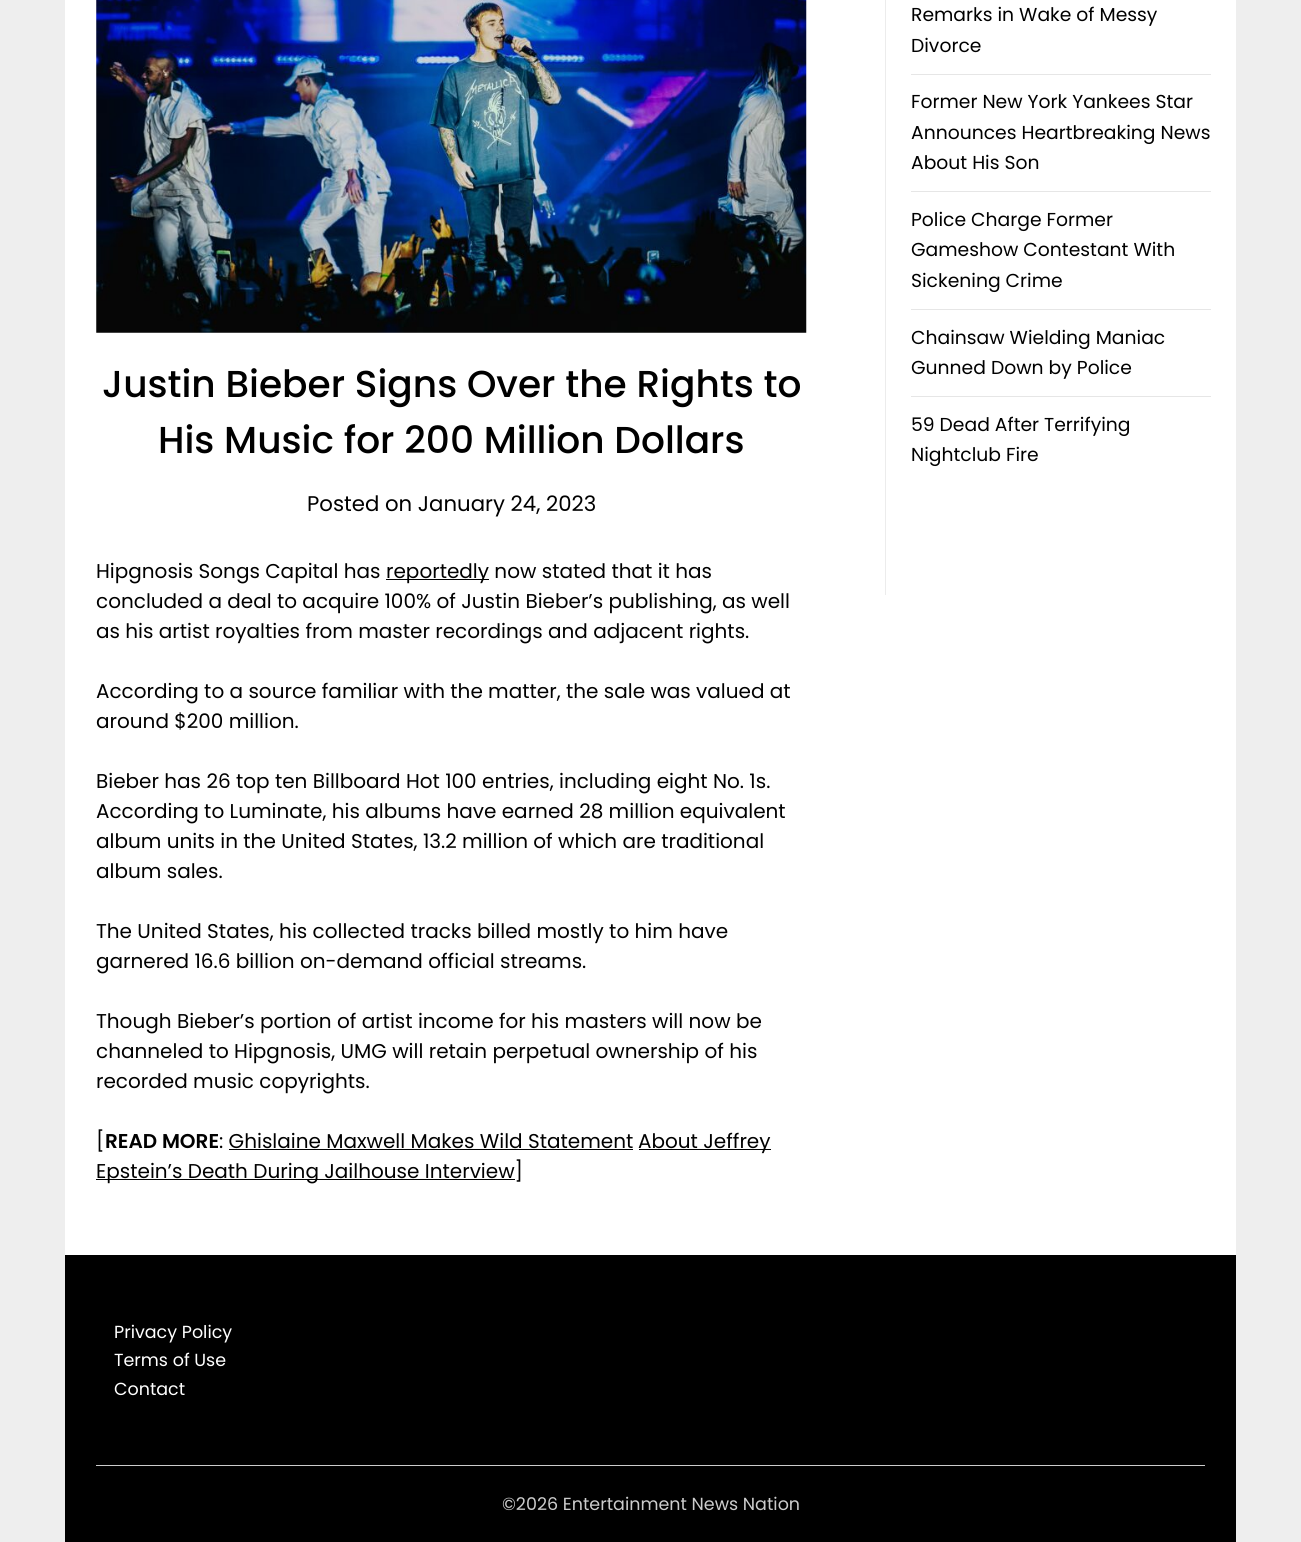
#include <cairo.h>
#include <math.h>
#include <stddef.h>

typedef struct { double x, y; const char *s; } line_t;
typedef struct { double x, y, w, h; unsigned color; } box_t;

static void ink(cairo_t *ctx, unsigned color) {
    cairo_set_source_rgb(ctx, (color >> 16) / 255.0, (color >> 8 & 255) / 255.0, (color & 255) / 255.0);
}

static void paste(cairo_t *ctx, const char *path, double x, double y, double w, double h) {
    cairo_surface_t *image = cairo_image_surface_create_from_png(path);
    cairo_save(ctx);
    cairo_set_source_surface(ctx, image, x, y);
    cairo_rectangle(ctx, x, y, w, h);
    cairo_fill(ctx);
    cairo_restore(ctx);
    cairo_surface_destroy(image);
}

int main(void) {
    cairo_surface_t *surface = cairo_image_surface_create(CAIRO_FORMAT_RGB24, 1301, 1542);
    cairo_t *ctx = cairo_create(surface);
    cairo_font_options_t *options = cairo_font_options_create();
    cairo_font_options_set_hint_metrics(options, CAIRO_HINT_METRICS_OFF);
    cairo_font_options_set_hint_style(options, CAIRO_HINT_STYLE_NONE);
    cairo_set_font_options(ctx, options);
    cairo_set_miter_limit(ctx, 4);
    ink(ctx, 0xEEEEEE);
    cairo_paint(ctx);
    {
        static const box_t items[] = {
            {65, 0, 1171, 1255, 0xFFFFFF},
            {885, 0, 1, 595, 0xECECEC},
            {911, 74, 300, 1, 0xE6E6E6},
        };
        for (size_t i = 0; i < sizeof items / sizeof *items; i++) {
            ink(ctx, items[i].color);
            cairo_rectangle(ctx, items[i].x, items[i].y, items[i].w, items[i].h);
            cairo_fill(ctx);
        }
    }
    cairo_select_font_face(ctx, "Poppins", CAIRO_FONT_SLANT_NORMAL, CAIRO_FONT_WEIGHT_NORMAL);
    cairo_set_font_size(ctx, 18.75);
    ink(ctx, 0x000000);
    cairo_move_to(ctx, 911, 21);
    cairo_show_text(ctx, "Remarks in Wake of Messy");
    cairo_move_to(ctx, 911, 52);
    cairo_show_text(ctx, "Divorce");
    ink(ctx, 0xE6E6E6);
    cairo_rectangle(ctx, 911, 191, 300, 1);
    cairo_fill(ctx);
    ink(ctx, 0x000000);
    {
        static const line_t items[] = {
            {911, 108, "Former New York Yankees Star"},
            {911, 139, "Announces Heartbreaking News"},
            {911, 169, "About His Son"},
        };
        for (size_t i = 0; i < sizeof items / sizeof *items; i++) {
            cairo_move_to(ctx, items[i].x, items[i].y);
            cairo_show_text(ctx, items[i].s);
        }
    }
    ink(ctx, 0xE6E6E6);
    cairo_rectangle(ctx, 911, 309, 300, 1);
    cairo_fill(ctx);
    ink(ctx, 0x000000);
    {
        static const line_t items[] = {
            {911, 226, "Police Charge Former"},
            {911, 256, "Gameshow Contestant With"},
            {911, 287, "Sickening Crime"},
        };
        for (size_t i = 0; i < sizeof items / sizeof *items; i++) {
            cairo_move_to(ctx, items[i].x, items[i].y);
            cairo_show_text(ctx, items[i].s);
        }
    }
    ink(ctx, 0xE6E6E6);
    cairo_rectangle(ctx, 911, 396, 300, 1);
    cairo_fill(ctx);
    ink(ctx, 0x000000);
    {
        static const line_t items[] = {
            {911, 344, "Chainsaw Wielding Maniac"},
            {911, 374, "Gunned Down by Police"},
            {911, 431, "59 Dead After Terrifying"},
            {911, 461, "Nightclub Fire"},
        };
        for (size_t i = 0; i < sizeof items / sizeof *items; i++) {
            cairo_move_to(ctx, items[i].x, items[i].y);
            cairo_show_text(ctx, items[i].s);
        }
    }
    paste(ctx, "media/1.png", 96, 0, 711, 333);
    cairo_select_font_face(ctx, "Poppins Medium", CAIRO_FONT_SLANT_NORMAL, CAIRO_FONT_WEIGHT_NORMAL);
    cairo_set_font_size(ctx, 37.5);
    cairo_move_to(ctx, 102, 397);
    cairo_show_text(ctx, "Justin Bieber Signs Over the Rights to");
    cairo_move_to(ctx, 158, 453);
    cairo_show_text(ctx, "His Music for 200 Million Dollars");
    cairo_select_font_face(ctx, "Poppins", CAIRO_FONT_SLANT_NORMAL, CAIRO_FONT_WEIGHT_NORMAL);
    cairo_set_font_size(ctx, 21.25);
    cairo_move_to(ctx, 307, 511);
    cairo_show_text(ctx, "Posted on January 24, 2023");
    cairo_set_font_size(ctx, 20);
    cairo_move_to(ctx, 96, 578);
    cairo_show_text(ctx, "Hipgnosis Songs Capital has");
    cairo_rectangle(ctx, 386, 579, 103, 1);
    cairo_fill(ctx);
    {
        static const line_t items[] = {
            {386, 578, "reportedly now stated that it has"},
            {96, 608, "concluded a deal to acquire 100% of Justin Bieber’s publishing, as well"},
            {96, 638, "as his artist royalties from master recordings and adjacent rights."},
            {96, 698, "According to a source familiar with the matter, the sale was valued at"},
            {96, 728, "around $200 million."},
            {96, 788, "Bieber has 26 top ten Billboard Hot 100 entries, including eight No. 1s."},
            {96, 818, "According to Luminate, his albums have earned 28 million equivalent"},
            {96, 848, "album units in the United States, 13.2 million of which are traditional"},
            {96, 878, "album sales."},
            {96, 938, "The United States, his collected tracks billed mostly to him have"},
            {96, 968, "garnered 16.6 billion on-demand official streams."},
            {96, 1028, "Though Bieber’s portion of artist income for his masters will now be"},
            {96, 1058, "channeled to Hipgnosis, UMG will retain perpetual ownership of his"},
            {96, 1088, "recorded music copyrights."},
            {96, 1148, "["},
        };
        for (size_t i = 0; i < sizeof items / sizeof *items; i++) {
            cairo_move_to(ctx, items[i].x, items[i].y);
            cairo_show_text(ctx, items[i].s);
        }
    }
    cairo_select_font_face(ctx, "Poppins SemiBold", CAIRO_FONT_SLANT_NORMAL, CAIRO_FONT_WEIGHT_NORMAL);
    cairo_move_to(ctx, 105, 1148);
    cairo_show_text(ctx, "READ MORE");
    cairo_select_font_face(ctx, "Poppins", CAIRO_FONT_SLANT_NORMAL, CAIRO_FONT_WEIGHT_NORMAL);
    cairo_move_to(ctx, 219, 1148);
    cairo_show_text(ctx, ": Ghislaine Maxwell Makes Wild Statement");
    cairo_rectangle(ctx, 639, 1149, 132, 1);
    cairo_fill(ctx);
    cairo_move_to(ctx, 638, 1148);
    cairo_show_text(ctx, "About Jeffrey");
    cairo_rectangle(ctx, 229, 1149, 404, 1);
    cairo_fill(ctx);
    cairo_rectangle(ctx, 96, 1179, 419, 1);
    cairo_fill(ctx);
    cairo_move_to(ctx, 96, 1178);
    cairo_show_text(ctx, "Epstein’s Death During Jailhouse Interview]");
    cairo_rectangle(ctx, 65, 1255, 1171, 287);
    cairo_fill(ctx);
    cairo_set_font_size(ctx, 17.5);
    ink(ctx, 0xFFFFFF);
    {
        static const line_t items[] = {
            {114, 1338, "Privacy Policy"},
            {114, 1366, "Terms of Use"},
            {114, 1395, "Contact"},
        };
        for (size_t i = 0; i < sizeof items / sizeof *items; i++) {
            cairo_move_to(ctx, items[i].x, items[i].y);
            cairo_show_text(ctx, items[i].s);
        }
    }
    ink(ctx, 0xCCCCCC);
    cairo_rectangle(ctx, 96, 1465, 1109, 1);
    cairo_fill(ctx);
    cairo_move_to(ctx, 502, 1510);
    cairo_show_text(ctx, "©2026 Entertainment News Nation");
    cairo_surface_write_to_png(surface, "image.png");
    cairo_font_options_destroy(options);
    cairo_destroy(ctx);
    cairo_surface_destroy(surface);
    return 0;
}
